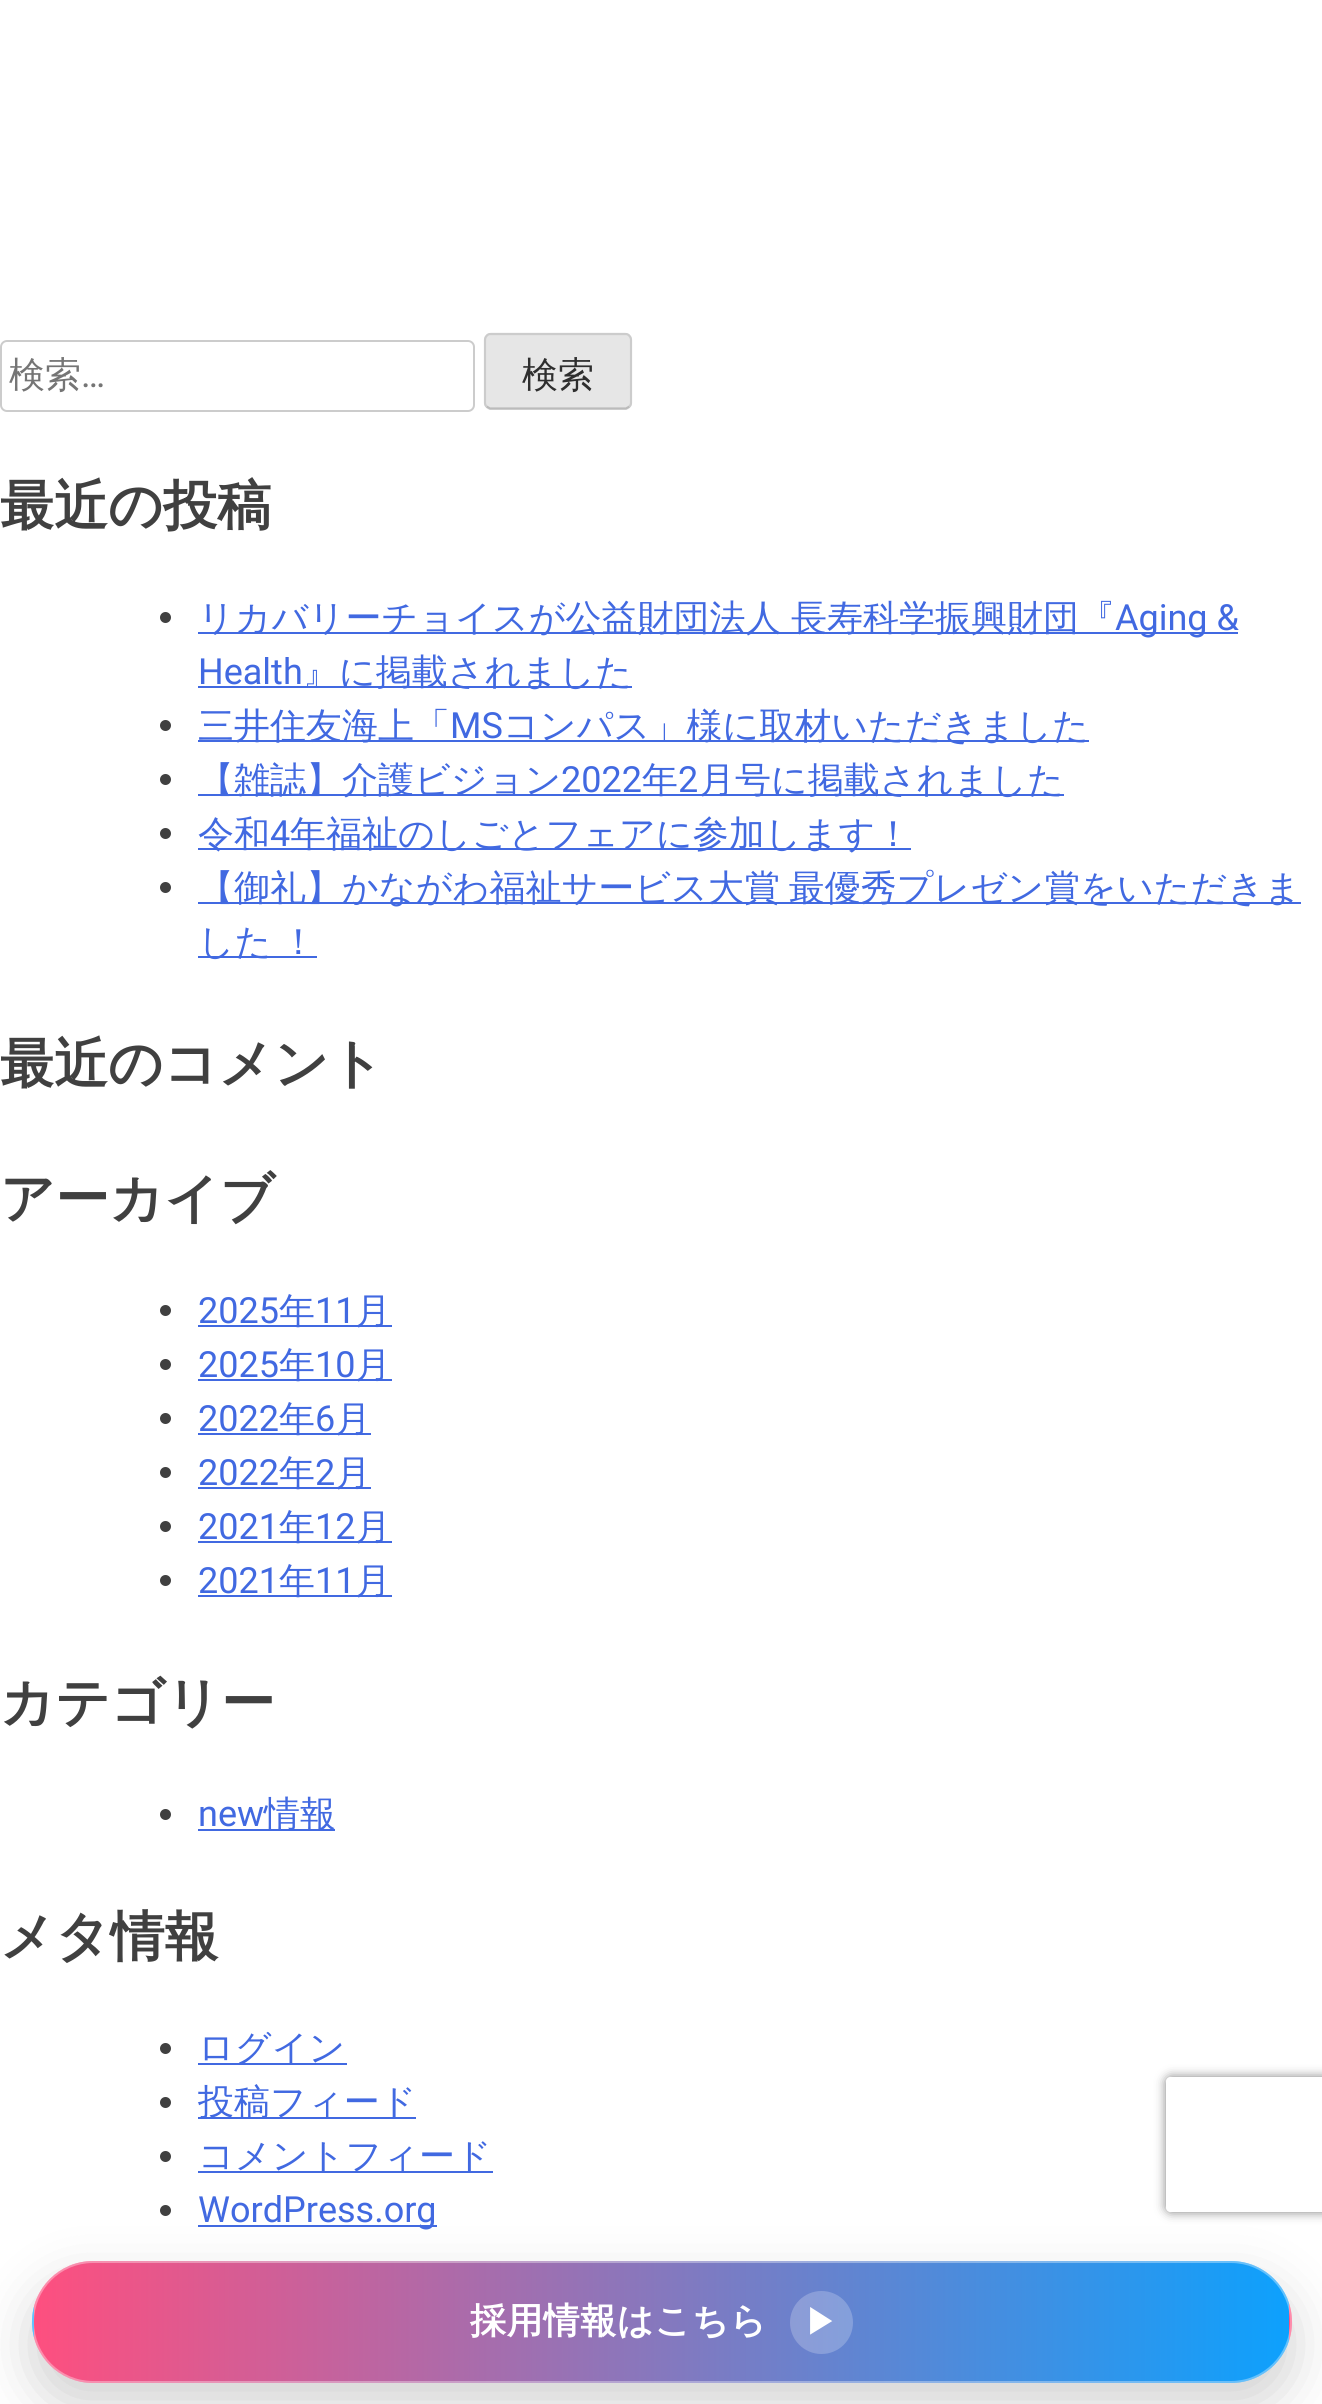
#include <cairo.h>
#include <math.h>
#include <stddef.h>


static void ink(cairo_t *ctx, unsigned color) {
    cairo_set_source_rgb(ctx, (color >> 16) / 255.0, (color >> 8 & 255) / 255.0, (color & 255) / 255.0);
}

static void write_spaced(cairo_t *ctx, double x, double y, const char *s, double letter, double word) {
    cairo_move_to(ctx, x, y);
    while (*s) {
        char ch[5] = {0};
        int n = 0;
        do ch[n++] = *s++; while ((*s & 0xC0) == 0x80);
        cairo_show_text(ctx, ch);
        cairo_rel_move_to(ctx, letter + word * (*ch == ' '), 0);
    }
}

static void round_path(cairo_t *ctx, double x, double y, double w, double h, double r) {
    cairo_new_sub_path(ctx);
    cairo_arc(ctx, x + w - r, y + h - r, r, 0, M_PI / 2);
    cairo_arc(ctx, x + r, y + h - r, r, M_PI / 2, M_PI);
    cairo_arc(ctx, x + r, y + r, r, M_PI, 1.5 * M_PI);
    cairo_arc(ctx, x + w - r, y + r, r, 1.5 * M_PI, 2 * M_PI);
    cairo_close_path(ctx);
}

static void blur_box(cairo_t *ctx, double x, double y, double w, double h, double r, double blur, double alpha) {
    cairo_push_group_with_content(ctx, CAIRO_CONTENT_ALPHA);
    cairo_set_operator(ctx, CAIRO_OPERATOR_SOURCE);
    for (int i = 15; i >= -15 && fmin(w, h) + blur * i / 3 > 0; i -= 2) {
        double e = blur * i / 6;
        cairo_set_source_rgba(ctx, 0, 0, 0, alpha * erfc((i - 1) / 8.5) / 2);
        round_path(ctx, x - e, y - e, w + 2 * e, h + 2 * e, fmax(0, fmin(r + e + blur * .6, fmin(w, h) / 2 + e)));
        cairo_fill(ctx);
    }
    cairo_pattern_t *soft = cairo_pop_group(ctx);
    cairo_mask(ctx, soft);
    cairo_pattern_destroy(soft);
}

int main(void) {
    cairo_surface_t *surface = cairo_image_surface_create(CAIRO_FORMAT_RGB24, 1322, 2404);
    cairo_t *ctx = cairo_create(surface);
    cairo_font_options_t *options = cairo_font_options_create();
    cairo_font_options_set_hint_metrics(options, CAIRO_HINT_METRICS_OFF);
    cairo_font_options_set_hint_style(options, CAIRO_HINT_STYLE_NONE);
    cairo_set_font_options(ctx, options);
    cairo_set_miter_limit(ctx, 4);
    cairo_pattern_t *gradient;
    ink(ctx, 0xFFFFFF);
    cairo_paint(ctx);
    round_path(ctx, 1, 341, 473, 70, 6);
    ink(ctx, 0xCCCCCC);
    cairo_stroke(ctx);
    cairo_select_font_face(ctx, "WenQuanYi Zen Hei Medium", CAIRO_FONT_SLANT_NORMAL, CAIRO_FONT_WEIGHT_NORMAL);
    cairo_set_font_size(ctx, 36);
    ink(ctx, 0x757575);
    cairo_move_to(ctx, 9, 387);
    cairo_show_text(ctx, "検索");
    cairo_select_font_face(ctx, "Roboto", CAIRO_FONT_SLANT_NORMAL, CAIRO_FONT_WEIGHT_NORMAL);
    cairo_move_to(ctx, 81, 387);
    cairo_show_text(ctx, "…");
    ink(ctx, 0xE6E6E6);
    round_path(ctx, 484, 333, 148, 77, 7);
    cairo_fill(ctx);
    cairo_new_path(ctx);
    cairo_move_to(ctx, 629.5, 406.5);
    cairo_line_to(ctx, 626, 408.5);
    cairo_line_to(ctx, 490, 408.5);
    cairo_line_to(ctx, 486.5, 406.5);
    ink(ctx, 0xBBBBBB);
    cairo_set_line_width(ctx, 2.2);
    cairo_stroke(ctx);
    cairo_new_path(ctx);
    cairo_move_to(ctx, 486.5, 406.5);
    cairo_curve_to(ctx, 485.5, 405.5, 485, 404, 485, 403);
    cairo_line_to(ctx, 485, 340);
    cairo_curve_to(ctx, 485, 338.5, 485.5, 337, 486.5, 336);
    cairo_curve_to(ctx, 487.5, 334.5, 489, 334, 490.5, 334);
    cairo_line_to(ctx, 625.5, 334);
    cairo_curve_to(ctx, 627, 334, 628.5, 334.5, 629.5, 336);
    cairo_curve_to(ctx, 630.5, 337, 631, 338.5, 631, 340);
    cairo_line_to(ctx, 631, 403);
    cairo_curve_to(ctx, 631, 404, 630.5, 405.5, 629.5, 406.5);
    ink(ctx, 0xCCCCCC);
    cairo_stroke(ctx);
    cairo_select_font_face(ctx, "WenQuanYi Zen Hei Medium", CAIRO_FONT_SLANT_NORMAL, CAIRO_FONT_WEIGHT_NORMAL);
    ink(ctx, 0x2E2E2E);
    cairo_move_to(ctx, 522, 387);
    cairo_show_text(ctx, "検索");
    cairo_select_font_face(ctx, "WenQuanYi Zen Hei", CAIRO_FONT_SLANT_NORMAL, CAIRO_FONT_WEIGHT_BOLD);
    cairo_set_font_size(ctx, 54);
    ink(ctx, 0x404040);
    cairo_move_to(ctx, 0, 524);
    cairo_show_text(ctx, "最近の投稿");
    cairo_new_path(ctx);
    cairo_arc(ctx, 165.5, 617.5, 5.5, 0, 2 * M_PI);
    cairo_fill(ctx);
    ink(ctx, 0x4169E1);
    cairo_rectangle(ctx, 198, 632, 1040, 2);
    cairo_fill(ctx);
    cairo_select_font_face(ctx, "WenQuanYi Zen Hei Medium", CAIRO_FONT_SLANT_NORMAL, CAIRO_FONT_WEIGHT_NORMAL);
    cairo_set_font_size(ctx, 36);
    cairo_move_to(ctx, 198, 630);
    cairo_show_text(ctx, "リカバリーチョイスが公益財団法人");
    cairo_move_to(ctx, 791, 630);
    cairo_show_text(ctx, "長寿科学振興財団『");
    cairo_select_font_face(ctx, "Roboto", CAIRO_FONT_SLANT_NORMAL, CAIRO_FONT_WEIGHT_NORMAL);
    cairo_move_to(ctx, 1115, 630);
    cairo_show_text(ctx, "Aging &");
    cairo_move_to(ctx, 198, 684);
    cairo_show_text(ctx, "Health");
    cairo_rectangle(ctx, 198, 686, 434, 2);
    cairo_fill(ctx);
    cairo_select_font_face(ctx, "WenQuanYi Zen Hei Medium", CAIRO_FONT_SLANT_NORMAL, CAIRO_FONT_WEIGHT_NORMAL);
    cairo_move_to(ctx, 303, 684);
    cairo_show_text(ctx, "』に掲載されました");
    ink(ctx, 0x404040);
    cairo_new_path(ctx);
    cairo_arc(ctx, 165.5, 725.5, 5.5, 0, 2 * M_PI);
    cairo_fill(ctx);
    ink(ctx, 0x4169E1);
    cairo_rectangle(ctx, 198, 740, 891, 2);
    cairo_fill(ctx);
    cairo_move_to(ctx, 198, 738);
    cairo_show_text(ctx, "三井住友海上「");
    cairo_select_font_face(ctx, "Roboto", CAIRO_FONT_SLANT_NORMAL, CAIRO_FONT_WEIGHT_NORMAL);
    cairo_move_to(ctx, 450, 738);
    cairo_show_text(ctx, "MS");
    cairo_select_font_face(ctx, "WenQuanYi Zen Hei Medium", CAIRO_FONT_SLANT_NORMAL, CAIRO_FONT_WEIGHT_NORMAL);
    cairo_move_to(ctx, 503, 738);
    cairo_show_text(ctx, "コンパス」様に取材いただきました");
    ink(ctx, 0x404040);
    cairo_new_path(ctx);
    cairo_arc(ctx, 165.5, 779.5, 5.5, 0, 2 * M_PI);
    cairo_fill(ctx);
    ink(ctx, 0x4169E1);
    cairo_rectangle(ctx, 198, 794, 866, 2);
    cairo_fill(ctx);
    cairo_move_to(ctx, 198, 792);
    cairo_show_text(ctx, "【雑誌】介護ビジョン");
    cairo_select_font_face(ctx, "Roboto", CAIRO_FONT_SLANT_NORMAL, CAIRO_FONT_WEIGHT_NORMAL);
    cairo_move_to(ctx, 561, 792);
    cairo_show_text(ctx, "2022");
    cairo_select_font_face(ctx, "WenQuanYi Zen Hei Medium", CAIRO_FONT_SLANT_NORMAL, CAIRO_FONT_WEIGHT_NORMAL);
    cairo_move_to(ctx, 642, 792);
    cairo_show_text(ctx, "年");
    cairo_select_font_face(ctx, "Roboto", CAIRO_FONT_SLANT_NORMAL, CAIRO_FONT_WEIGHT_NORMAL);
    cairo_move_to(ctx, 678, 792);
    cairo_show_text(ctx, "2");
    cairo_select_font_face(ctx, "WenQuanYi Zen Hei Medium", CAIRO_FONT_SLANT_NORMAL, CAIRO_FONT_WEIGHT_NORMAL);
    cairo_move_to(ctx, 699, 792);
    cairo_show_text(ctx, "月号に掲載されました");
    ink(ctx, 0x404040);
    cairo_new_path(ctx);
    cairo_arc(ctx, 165.5, 833.5, 5.5, 0, 2 * M_PI);
    cairo_fill(ctx);
    ink(ctx, 0x4169E1);
    cairo_rectangle(ctx, 198, 848, 713, 2);
    cairo_fill(ctx);
    cairo_move_to(ctx, 198, 846);
    cairo_show_text(ctx, "令和");
    cairo_select_font_face(ctx, "Roboto", CAIRO_FONT_SLANT_NORMAL, CAIRO_FONT_WEIGHT_NORMAL);
    cairo_move_to(ctx, 270, 846);
    cairo_show_text(ctx, "4");
    cairo_select_font_face(ctx, "WenQuanYi Zen Hei Medium", CAIRO_FONT_SLANT_NORMAL, CAIRO_FONT_WEIGHT_NORMAL);
    cairo_move_to(ctx, 290, 846);
    cairo_show_text(ctx, "年福祉のしごとフェアに参加します！");
    ink(ctx, 0x404040);
    cairo_new_path(ctx);
    cairo_arc(ctx, 165.5, 887.5, 5.5, 0, 2 * M_PI);
    cairo_fill(ctx);
    ink(ctx, 0x4169E1);
    cairo_rectangle(ctx, 198, 902, 1103, 2);
    cairo_fill(ctx);
    write_spaced(ctx, 198, 900, "【御礼】かながわ福祉サービス大賞 最優秀プレゼン賞をいただきま", 0, -2);
    cairo_rectangle(ctx, 198, 956, 119, 2);
    cairo_fill(ctx);
    write_spaced(ctx, 198, 954, "した ！", 0, -2);
    cairo_select_font_face(ctx, "WenQuanYi Zen Hei", CAIRO_FONT_SLANT_NORMAL, CAIRO_FONT_WEIGHT_BOLD);
    cairo_set_font_size(ctx, 54);
    ink(ctx, 0x404040);
    cairo_move_to(ctx, 0, 1082);
    cairo_show_text(ctx, "最近のコメント");
    cairo_move_to(ctx, 0, 1217);
    cairo_show_text(ctx, "アーカイブ");
    cairo_new_path(ctx);
    cairo_arc(ctx, 165.5, 1310.5, 5.5, 0, 2 * M_PI);
    cairo_fill(ctx);
    cairo_select_font_face(ctx, "Roboto", CAIRO_FONT_SLANT_NORMAL, CAIRO_FONT_WEIGHT_NORMAL);
    cairo_set_font_size(ctx, 36);
    ink(ctx, 0x4169E1);
    cairo_move_to(ctx, 198, 1323);
    cairo_show_text(ctx, "2025");
    cairo_rectangle(ctx, 198, 1325, 194, 2);
    cairo_fill(ctx);
    cairo_select_font_face(ctx, "WenQuanYi Zen Hei Medium", CAIRO_FONT_SLANT_NORMAL, CAIRO_FONT_WEIGHT_NORMAL);
    cairo_move_to(ctx, 279, 1323);
    cairo_show_text(ctx, "年");
    cairo_select_font_face(ctx, "Roboto", CAIRO_FONT_SLANT_NORMAL, CAIRO_FONT_WEIGHT_NORMAL);
    cairo_move_to(ctx, 315, 1323);
    cairo_show_text(ctx, "11");
    cairo_select_font_face(ctx, "WenQuanYi Zen Hei Medium", CAIRO_FONT_SLANT_NORMAL, CAIRO_FONT_WEIGHT_NORMAL);
    cairo_move_to(ctx, 355, 1323);
    cairo_show_text(ctx, "月");
    ink(ctx, 0x404040);
    cairo_new_path(ctx);
    cairo_arc(ctx, 165.5, 1364.5, 5.5, 0, 2 * M_PI);
    cairo_fill(ctx);
    cairo_select_font_face(ctx, "Roboto", CAIRO_FONT_SLANT_NORMAL, CAIRO_FONT_WEIGHT_NORMAL);
    ink(ctx, 0x4169E1);
    cairo_move_to(ctx, 198, 1377);
    cairo_show_text(ctx, "2025");
    cairo_rectangle(ctx, 198, 1379, 194, 2);
    cairo_fill(ctx);
    cairo_select_font_face(ctx, "WenQuanYi Zen Hei Medium", CAIRO_FONT_SLANT_NORMAL, CAIRO_FONT_WEIGHT_NORMAL);
    cairo_move_to(ctx, 279, 1377);
    cairo_show_text(ctx, "年");
    cairo_select_font_face(ctx, "Roboto", CAIRO_FONT_SLANT_NORMAL, CAIRO_FONT_WEIGHT_NORMAL);
    cairo_move_to(ctx, 315, 1377);
    cairo_show_text(ctx, "10");
    cairo_select_font_face(ctx, "WenQuanYi Zen Hei Medium", CAIRO_FONT_SLANT_NORMAL, CAIRO_FONT_WEIGHT_NORMAL);
    cairo_move_to(ctx, 355, 1377);
    cairo_show_text(ctx, "月");
    ink(ctx, 0x404040);
    cairo_new_path(ctx);
    cairo_arc(ctx, 165.5, 1418.5, 5.5, 0, 2 * M_PI);
    cairo_fill(ctx);
    cairo_select_font_face(ctx, "Roboto", CAIRO_FONT_SLANT_NORMAL, CAIRO_FONT_WEIGHT_NORMAL);
    ink(ctx, 0x4169E1);
    cairo_move_to(ctx, 198, 1431);
    cairo_show_text(ctx, "2022");
    cairo_rectangle(ctx, 198, 1433, 173, 2);
    cairo_fill(ctx);
    cairo_select_font_face(ctx, "WenQuanYi Zen Hei Medium", CAIRO_FONT_SLANT_NORMAL, CAIRO_FONT_WEIGHT_NORMAL);
    cairo_move_to(ctx, 279, 1431);
    cairo_show_text(ctx, "年");
    cairo_select_font_face(ctx, "Roboto", CAIRO_FONT_SLANT_NORMAL, CAIRO_FONT_WEIGHT_NORMAL);
    cairo_move_to(ctx, 315, 1431);
    cairo_show_text(ctx, "6");
    cairo_select_font_face(ctx, "WenQuanYi Zen Hei Medium", CAIRO_FONT_SLANT_NORMAL, CAIRO_FONT_WEIGHT_NORMAL);
    cairo_move_to(ctx, 335, 1431);
    cairo_show_text(ctx, "月");
    ink(ctx, 0x404040);
    cairo_new_path(ctx);
    cairo_arc(ctx, 165.5, 1472.5, 5.5, 0, 2 * M_PI);
    cairo_fill(ctx);
    cairo_select_font_face(ctx, "Roboto", CAIRO_FONT_SLANT_NORMAL, CAIRO_FONT_WEIGHT_NORMAL);
    ink(ctx, 0x4169E1);
    cairo_move_to(ctx, 198, 1485);
    cairo_show_text(ctx, "2022");
    cairo_rectangle(ctx, 198, 1487, 173, 2);
    cairo_fill(ctx);
    cairo_select_font_face(ctx, "WenQuanYi Zen Hei Medium", CAIRO_FONT_SLANT_NORMAL, CAIRO_FONT_WEIGHT_NORMAL);
    cairo_move_to(ctx, 279, 1485);
    cairo_show_text(ctx, "年");
    cairo_select_font_face(ctx, "Roboto", CAIRO_FONT_SLANT_NORMAL, CAIRO_FONT_WEIGHT_NORMAL);
    cairo_move_to(ctx, 315, 1485);
    cairo_show_text(ctx, "2");
    cairo_select_font_face(ctx, "WenQuanYi Zen Hei Medium", CAIRO_FONT_SLANT_NORMAL, CAIRO_FONT_WEIGHT_NORMAL);
    cairo_move_to(ctx, 335, 1485);
    cairo_show_text(ctx, "月");
    ink(ctx, 0x404040);
    cairo_new_path(ctx);
    cairo_arc(ctx, 165.5, 1526.5, 5.5, 0, 2 * M_PI);
    cairo_fill(ctx);
    cairo_select_font_face(ctx, "Roboto", CAIRO_FONT_SLANT_NORMAL, CAIRO_FONT_WEIGHT_NORMAL);
    ink(ctx, 0x4169E1);
    cairo_move_to(ctx, 198, 1539);
    cairo_show_text(ctx, "2021");
    cairo_rectangle(ctx, 198, 1541, 194, 2);
    cairo_fill(ctx);
    cairo_select_font_face(ctx, "WenQuanYi Zen Hei Medium", CAIRO_FONT_SLANT_NORMAL, CAIRO_FONT_WEIGHT_NORMAL);
    cairo_move_to(ctx, 279, 1539);
    cairo_show_text(ctx, "年");
    cairo_select_font_face(ctx, "Roboto", CAIRO_FONT_SLANT_NORMAL, CAIRO_FONT_WEIGHT_NORMAL);
    cairo_move_to(ctx, 315, 1539);
    cairo_show_text(ctx, "12");
    cairo_select_font_face(ctx, "WenQuanYi Zen Hei Medium", CAIRO_FONT_SLANT_NORMAL, CAIRO_FONT_WEIGHT_NORMAL);
    cairo_move_to(ctx, 355, 1539);
    cairo_show_text(ctx, "月");
    ink(ctx, 0x404040);
    cairo_new_path(ctx);
    cairo_arc(ctx, 165.5, 1580.5, 5.5, 0, 2 * M_PI);
    cairo_fill(ctx);
    cairo_select_font_face(ctx, "Roboto", CAIRO_FONT_SLANT_NORMAL, CAIRO_FONT_WEIGHT_NORMAL);
    ink(ctx, 0x4169E1);
    cairo_move_to(ctx, 198, 1593);
    cairo_show_text(ctx, "2021");
    cairo_rectangle(ctx, 198, 1595, 194, 2);
    cairo_fill(ctx);
    cairo_select_font_face(ctx, "WenQuanYi Zen Hei Medium", CAIRO_FONT_SLANT_NORMAL, CAIRO_FONT_WEIGHT_NORMAL);
    cairo_move_to(ctx, 279, 1593);
    cairo_show_text(ctx, "年");
    cairo_select_font_face(ctx, "Roboto", CAIRO_FONT_SLANT_NORMAL, CAIRO_FONT_WEIGHT_NORMAL);
    cairo_move_to(ctx, 315, 1593);
    cairo_show_text(ctx, "11");
    cairo_select_font_face(ctx, "WenQuanYi Zen Hei Medium", CAIRO_FONT_SLANT_NORMAL, CAIRO_FONT_WEIGHT_NORMAL);
    cairo_move_to(ctx, 355, 1593);
    cairo_show_text(ctx, "月");
    cairo_select_font_face(ctx, "WenQuanYi Zen Hei", CAIRO_FONT_SLANT_NORMAL, CAIRO_FONT_WEIGHT_BOLD);
    cairo_set_font_size(ctx, 54);
    ink(ctx, 0x404040);
    cairo_move_to(ctx, 0, 1721);
    cairo_show_text(ctx, "カテゴリー");
    cairo_new_path(ctx);
    cairo_arc(ctx, 165.5, 1814.5, 5.5, 0, 2 * M_PI);
    cairo_fill(ctx);
    cairo_select_font_face(ctx, "Roboto", CAIRO_FONT_SLANT_NORMAL, CAIRO_FONT_WEIGHT_NORMAL);
    cairo_set_font_size(ctx, 36);
    ink(ctx, 0x4169E1);
    cairo_move_to(ctx, 198, 1826);
    cairo_show_text(ctx, "new");
    cairo_rectangle(ctx, 198, 1829, 137, 2);
    cairo_fill(ctx);
    cairo_select_font_face(ctx, "WenQuanYi Zen Hei Medium", CAIRO_FONT_SLANT_NORMAL, CAIRO_FONT_WEIGHT_NORMAL);
    cairo_move_to(ctx, 264, 1826);
    cairo_show_text(ctx, "情報");
    cairo_select_font_face(ctx, "WenQuanYi Zen Hei", CAIRO_FONT_SLANT_NORMAL, CAIRO_FONT_WEIGHT_BOLD);
    cairo_set_font_size(ctx, 54);
    ink(ctx, 0x404040);
    cairo_move_to(ctx, 0, 1955);
    cairo_show_text(ctx, "メタ情報");
    cairo_new_path(ctx);
    cairo_arc(ctx, 165.5, 2048.5, 5.5, 0, 2 * M_PI);
    cairo_fill(ctx);
    ink(ctx, 0x4169E1);
    cairo_rectangle(ctx, 198, 2063, 149, 2);
    cairo_fill(ctx);
    cairo_select_font_face(ctx, "WenQuanYi Zen Hei Medium", CAIRO_FONT_SLANT_NORMAL, CAIRO_FONT_WEIGHT_NORMAL);
    cairo_set_font_size(ctx, 36);
    cairo_move_to(ctx, 198, 2060);
    cairo_show_text(ctx, "ログイン");
    ink(ctx, 0x404040);
    cairo_new_path(ctx);
    cairo_arc(ctx, 165.5, 2102.5, 5.5, 0, 2 * M_PI);
    cairo_fill(ctx);
    ink(ctx, 0x4169E1);
    cairo_rectangle(ctx, 198, 2117, 218, 2);
    cairo_fill(ctx);
    cairo_move_to(ctx, 198, 2114);
    cairo_show_text(ctx, "投稿フィード");
    ink(ctx, 0x404040);
    cairo_new_path(ctx);
    cairo_arc(ctx, 165.5, 2156.5, 5.5, 0, 2 * M_PI);
    cairo_fill(ctx);
    ink(ctx, 0x4169E1);
    cairo_rectangle(ctx, 198, 2171, 295, 2);
    cairo_fill(ctx);
    cairo_move_to(ctx, 198, 2168);
    cairo_show_text(ctx, "コメントフィード");
    ink(ctx, 0x404040);
    cairo_new_path(ctx);
    cairo_arc(ctx, 165.5, 2210.5, 5.5, 0, 2 * M_PI);
    cairo_fill(ctx);
    ink(ctx, 0x4169E1);
    cairo_rectangle(ctx, 198, 2225, 239, 2);
    cairo_fill(ctx);
    cairo_select_font_face(ctx, "Roboto", CAIRO_FONT_SLANT_NORMAL, CAIRO_FONT_WEIGHT_NORMAL);
    cairo_move_to(ctx, 198, 2222);
    cairo_show_text(ctx, "WordPress.org");
    cairo_save(ctx);
    cairo_set_fill_rule(ctx, CAIRO_FILL_RULE_EVEN_ODD);
    cairo_new_path(ctx);
    cairo_move_to(ctx, 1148, 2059);
    cairo_line_to(ctx, 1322, 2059);
    cairo_line_to(ctx, 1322, 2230);
    cairo_line_to(ctx, 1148, 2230);
    cairo_close_path(ctx);
    cairo_move_to(ctx, 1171, 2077);
    cairo_line_to(ctx, 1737, 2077);
    cairo_curve_to(ctx, 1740, 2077, 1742, 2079, 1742, 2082);
    cairo_line_to(ctx, 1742, 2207);
    cairo_curve_to(ctx, 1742, 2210, 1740, 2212, 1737, 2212);
    cairo_line_to(ctx, 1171, 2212);
    cairo_curve_to(ctx, 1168, 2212, 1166, 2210, 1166, 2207);
    cairo_line_to(ctx, 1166, 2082);
    cairo_curve_to(ctx, 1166, 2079, 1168, 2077, 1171, 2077);
    cairo_close_path(ctx);
    cairo_clip(ctx);
    ink(ctx, 0x808080);
    blur_box(ctx, 1166, 2077, 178, 135, 5, 5.5, 1);
    cairo_restore(ctx);
    ink(ctx, 0x000000);
    blur_box(ctx, 32, 2284, 1260, 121, 60.5, 27, 0.18);
    cairo_save(ctx);
    round_path(ctx, 32, 2261, 1260, 122, 61);
    cairo_clip(ctx);
    gradient = cairo_pattern_create_linear(-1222, 2322, 34, 2322);
    cairo_pattern_add_color_stop_rgba(gradient, 0, 0.996, 0.31, 0.498, 1);
    cairo_pattern_add_color_stop_rgba(gradient, 1, 0.051, 0.631, 0.992, 1);
    cairo_set_source(ctx, gradient);
    cairo_pattern_destroy(gradient);
    cairo_rectangle(ctx, 32, 2306, 2, 32);
    cairo_fill(ctx);
    gradient = cairo_pattern_create_linear(34, 2322, 1289, 2322);
    cairo_pattern_add_color_stop_rgba(gradient, 0, 0.996, 0.31, 0.498, 1);
    cairo_pattern_add_color_stop_rgba(gradient, 1, 0.051, 0.631, 0.992, 1);
    cairo_set_source(ctx, gradient);
    cairo_pattern_destroy(gradient);
    cairo_rectangle(ctx, 34, 2261, 1255, 122);
    cairo_fill(ctx);
    gradient = cairo_pattern_create_linear(1289, 2322, 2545, 2322);
    cairo_pattern_add_color_stop_rgba(gradient, 0, 0.996, 0.31, 0.498, 1);
    cairo_pattern_add_color_stop_rgba(gradient, 1, 0.051, 0.631, 0.992, 1);
    cairo_set_source(ctx, gradient);
    cairo_pattern_destroy(gradient);
    cairo_rectangle(ctx, 1289, 2303, 3, 38);
    cairo_fill(ctx);
    cairo_restore(ctx);
    round_path(ctx, 33, 2262, 1258, 120, 60);
    cairo_set_source_rgba(ctx, 1, 1, 1, 0.35);
    cairo_set_line_width(ctx, 2);
    cairo_stroke(ctx);
    cairo_select_font_face(ctx, "WenQuanYi Zen Hei", CAIRO_FONT_SLANT_NORMAL, CAIRO_FONT_WEIGHT_BOLD);
    ink(ctx, 0xFFFFFF);
    write_spaced(ctx, 470, 2333, "採用情報はこちら", 0.75, 0);
    cairo_set_source_rgba(ctx, 1, 1, 1, 0.22);
    cairo_new_path(ctx);
    cairo_arc(ctx, 821.5, 2322.5, 31.5, 0, 2 * M_PI);
    cairo_fill(ctx);
    cairo_set_font_size(ctx, 32);
    ink(ctx, 0xFFFFFF);
    write_spaced(ctx, 805, 2333, "▶", 0.75, 0);
    cairo_surface_write_to_png(surface, "image.png");
    cairo_font_options_destroy(options);
    cairo_destroy(ctx);
    cairo_surface_destroy(surface);
    return 0;
}
